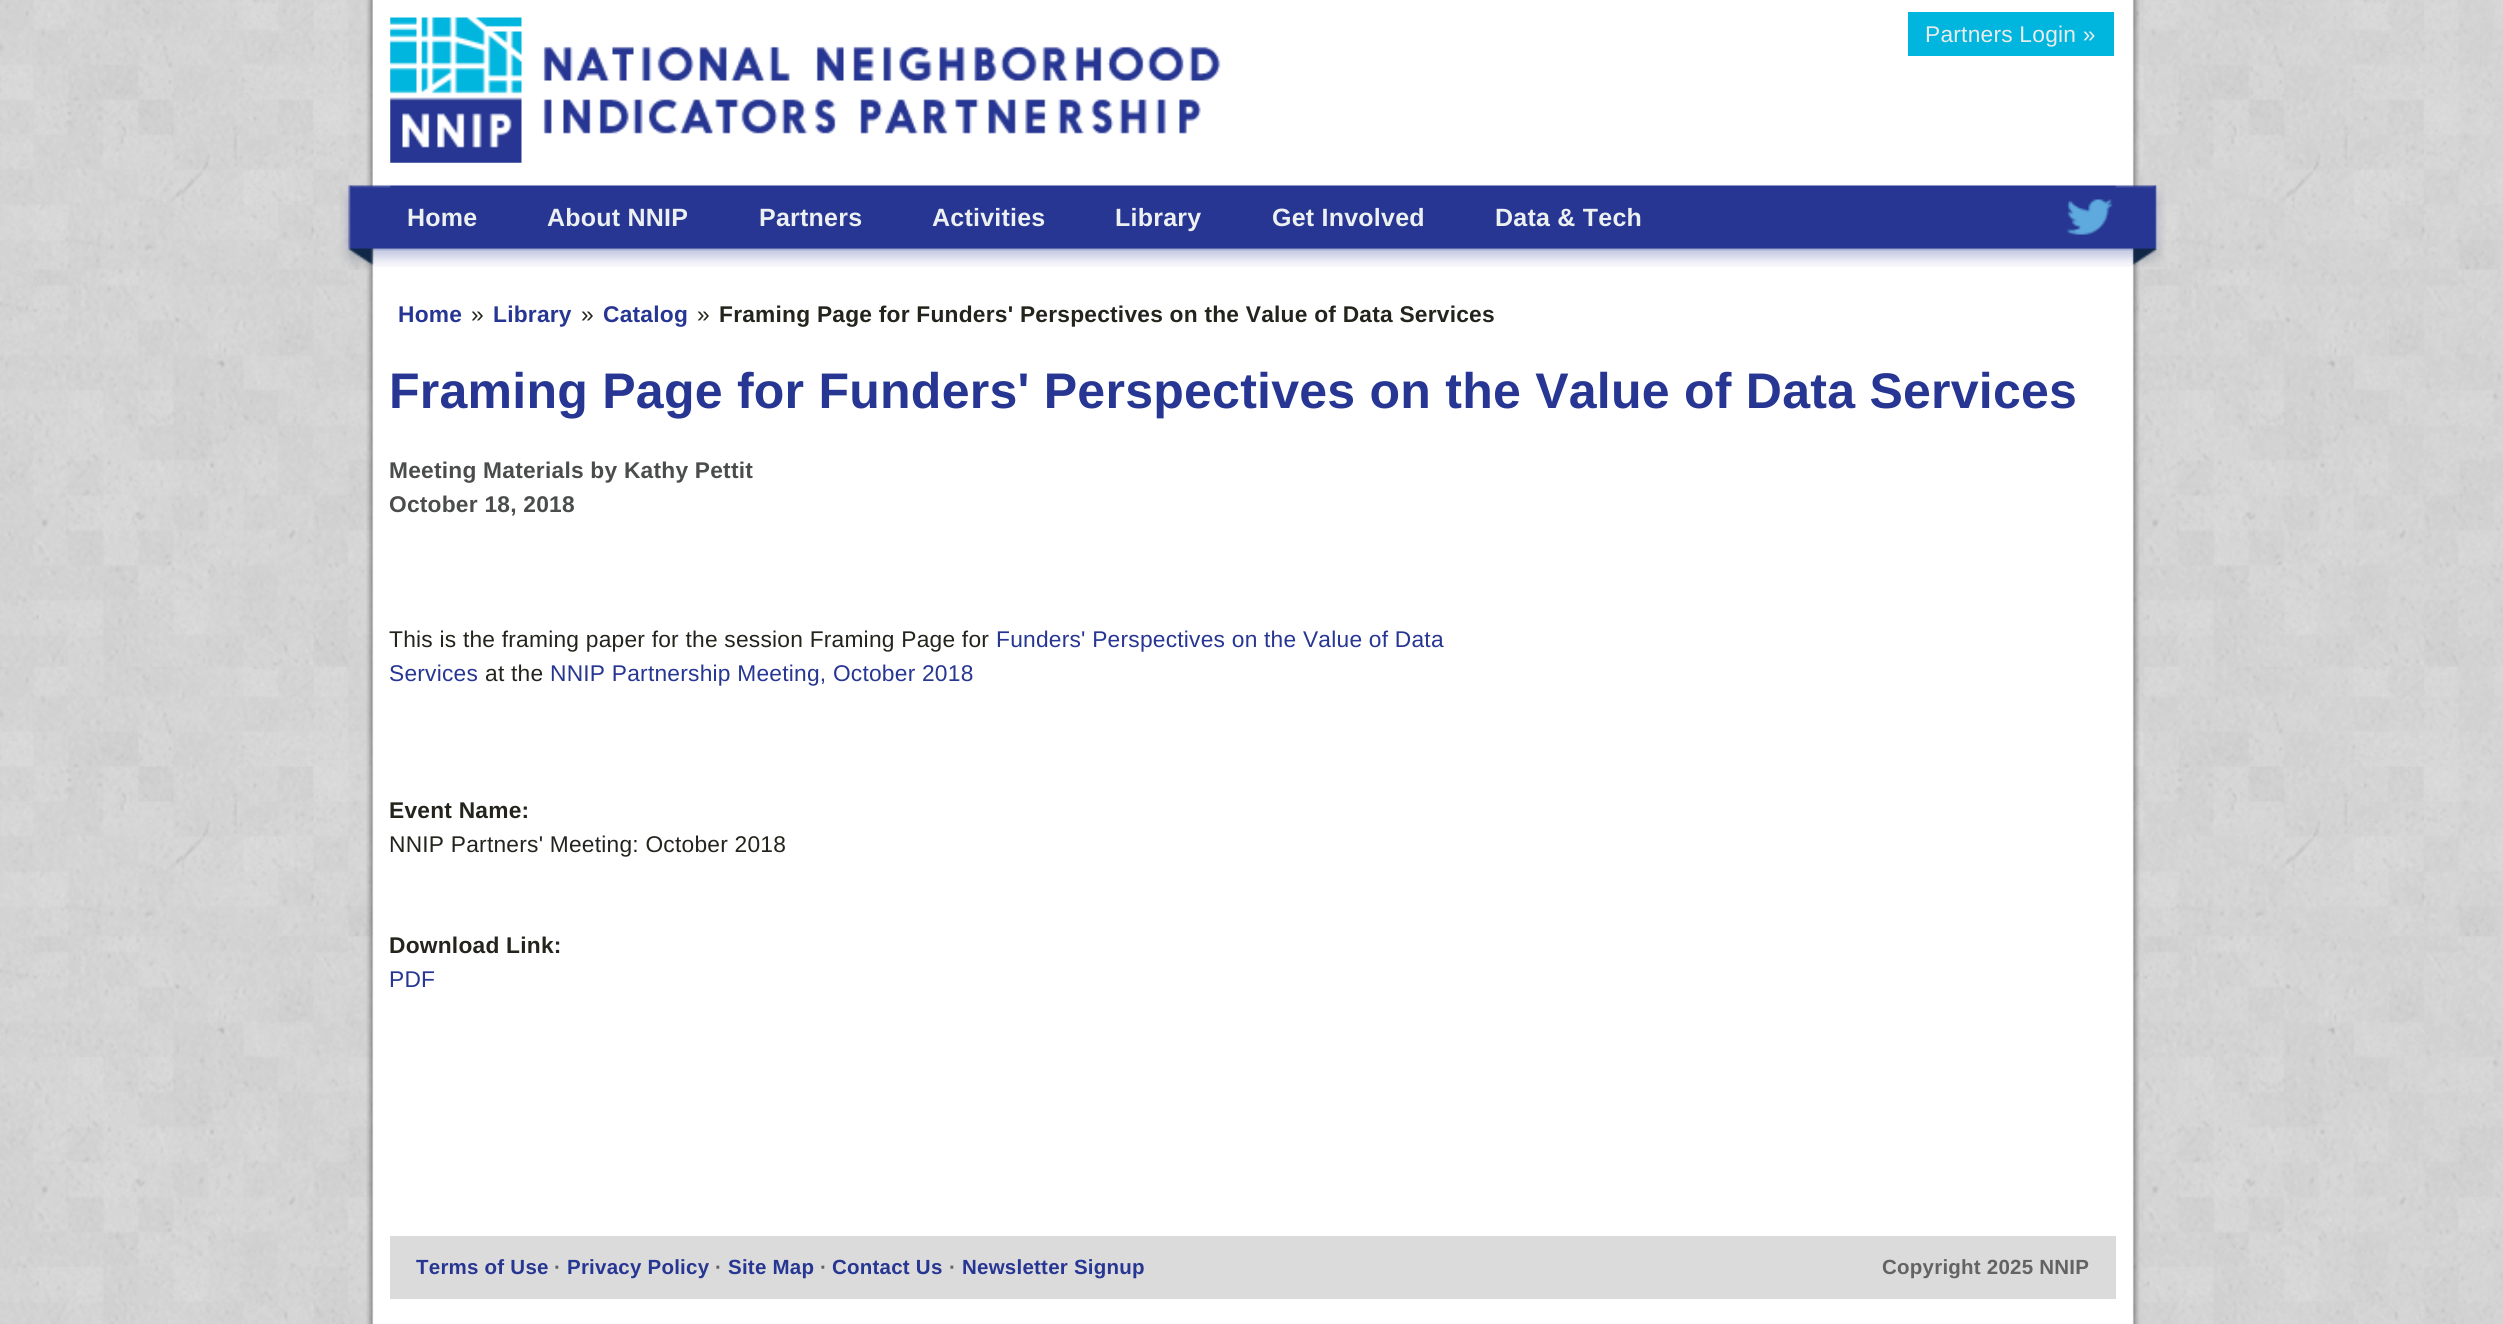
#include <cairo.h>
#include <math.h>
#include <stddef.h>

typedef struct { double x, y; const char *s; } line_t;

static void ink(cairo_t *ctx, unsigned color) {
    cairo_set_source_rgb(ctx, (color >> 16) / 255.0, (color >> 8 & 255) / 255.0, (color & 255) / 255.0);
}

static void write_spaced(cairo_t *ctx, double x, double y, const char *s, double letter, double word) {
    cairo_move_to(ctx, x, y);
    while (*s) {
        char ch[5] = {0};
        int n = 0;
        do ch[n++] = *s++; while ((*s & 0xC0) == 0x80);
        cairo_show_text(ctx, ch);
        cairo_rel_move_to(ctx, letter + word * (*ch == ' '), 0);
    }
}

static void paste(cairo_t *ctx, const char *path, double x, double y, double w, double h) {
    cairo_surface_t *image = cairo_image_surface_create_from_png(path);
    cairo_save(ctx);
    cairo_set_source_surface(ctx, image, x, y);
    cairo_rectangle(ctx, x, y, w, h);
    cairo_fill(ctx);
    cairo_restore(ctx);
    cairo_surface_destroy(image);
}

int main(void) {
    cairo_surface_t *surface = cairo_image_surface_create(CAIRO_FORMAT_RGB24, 2503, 1324);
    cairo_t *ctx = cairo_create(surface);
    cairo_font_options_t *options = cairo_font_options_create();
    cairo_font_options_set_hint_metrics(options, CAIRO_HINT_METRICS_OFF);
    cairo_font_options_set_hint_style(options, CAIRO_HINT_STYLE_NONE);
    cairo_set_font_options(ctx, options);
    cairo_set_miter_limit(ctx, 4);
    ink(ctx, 0xFFFFFF);
    cairo_paint(ctx);
    paste(ctx, "media/1.png", 0, 0, 2503, 1324);
    paste(ctx, "media/2.png", 366, 0, 1774, 1324);
    ink(ctx, 0xFFFFFF);
    cairo_rectangle(ctx, 373, 0, 1, 186);
    cairo_fill(ctx);
    paste(ctx, "media/3.png", 390, 17, 831, 146);
    ink(ctx, 0x00B6DE);
    cairo_rectangle(ctx, 1908, 12, 206, 44);
    cairo_fill(ctx);
    cairo_select_font_face(ctx, "Liberation Sans", CAIRO_FONT_SLANT_NORMAL, CAIRO_FONT_WEIGHT_NORMAL);
    cairo_set_font_size(ctx, 22.75);
    ink(ctx, 0xEBEBEB);
    write_spaced(ctx, 1925, 42, "Partners Login »", 0.23, 0);
    paste(ctx, "media/4.png", 340, 184, 1826, 83);
    cairo_select_font_face(ctx, "Liberation Sans", CAIRO_FONT_SLANT_NORMAL, CAIRO_FONT_WEIGHT_BOLD);
    cairo_set_font_size(ctx, 25);
    ink(ctx, 0xECF0F1);
    {
        static const line_t items[] = {
            {407, 226, "Home"},
            {547, 226, "About NNIP"},
            {759, 226, "Partners"},
            {932, 226, "Activities"},
            {1115, 226, "Library"},
            {1272, 226, "Get Involved"},
            {1495, 226, "Data & Tech"},
        };
        for (size_t i = 0; i < sizeof items / sizeof *items; i++) {
            write_spaced(ctx, items[i].x, items[i].y, items[i].s, 0.23, 0);
        }
    }
    paste(ctx, "media/5.png", 2066, 199, 47, 36);
    cairo_set_font_size(ctx, 22.75);
    ink(ctx, 0x263692);
    write_spaced(ctx, 398, 322, "Home", 0.23, 0);
    cairo_select_font_face(ctx, "Liberation Sans", CAIRO_FONT_SLANT_NORMAL, CAIRO_FONT_WEIGHT_NORMAL);
    ink(ctx, 0x24241D);
    write_spaced(ctx, 471, 322, "»", 0.23, 0);
    cairo_select_font_face(ctx, "Liberation Sans", CAIRO_FONT_SLANT_NORMAL, CAIRO_FONT_WEIGHT_BOLD);
    ink(ctx, 0x263692);
    write_spaced(ctx, 493, 322, "Library", 0.23, 0);
    cairo_select_font_face(ctx, "Liberation Sans", CAIRO_FONT_SLANT_NORMAL, CAIRO_FONT_WEIGHT_NORMAL);
    ink(ctx, 0x24241D);
    write_spaced(ctx, 581, 322, "»", 0.23, 0);
    cairo_select_font_face(ctx, "Liberation Sans", CAIRO_FONT_SLANT_NORMAL, CAIRO_FONT_WEIGHT_BOLD);
    ink(ctx, 0x263692);
    write_spaced(ctx, 603, 322, "Catalog", 0.23, 0);
    cairo_select_font_face(ctx, "Liberation Sans", CAIRO_FONT_SLANT_NORMAL, CAIRO_FONT_WEIGHT_NORMAL);
    ink(ctx, 0x24241D);
    write_spaced(ctx, 697, 322, "»", 0.23, 0);
    cairo_select_font_face(ctx, "Liberation Sans", CAIRO_FONT_SLANT_NORMAL, CAIRO_FONT_WEIGHT_BOLD);
    write_spaced(ctx, 719, 322, "Framing Page for Funders' Perspectives on the Value of Data Services", 0.23, 0);
    cairo_set_font_size(ctx, 50.05);
    ink(ctx, 0x263692);
    write_spaced(ctx, 389, 408, "Framing Page for Funders' Perspectives on the Value of Data Services", 0.23, 0);
    cairo_set_font_size(ctx, 22.75);
    ink(ctx, 0x4B4D4C);
    write_spaced(ctx, 389, 478, "Meeting Materials by Kathy Pettit", 0.23, 0);
    write_spaced(ctx, 389, 512, "October 18, 2018", 0.23, 0);
    cairo_select_font_face(ctx, "Liberation Sans", CAIRO_FONT_SLANT_NORMAL, CAIRO_FONT_WEIGHT_NORMAL);
    ink(ctx, 0x24241D);
    write_spaced(ctx, 389, 647, "This is the framing paper for the session Framing Page for", 0.23, 0);
    ink(ctx, 0x263692);
    write_spaced(ctx, 996, 647, "Funders' Perspectives on the Value of Data", 0.23, 0);
    write_spaced(ctx, 389, 681, "Services", 0.23, 0);
    ink(ctx, 0x24241D);
    write_spaced(ctx, 485, 681, "at the", 0.23, 0);
    ink(ctx, 0x263692);
    write_spaced(ctx, 550, 681, "NNIP Partnership Meeting, October 2018", 0.23, 0);
    cairo_select_font_face(ctx, "Liberation Sans", CAIRO_FONT_SLANT_NORMAL, CAIRO_FONT_WEIGHT_BOLD);
    ink(ctx, 0x24241D);
    write_spaced(ctx, 389, 818, "Event Name:", 0.23, 0);
    cairo_select_font_face(ctx, "Liberation Sans", CAIRO_FONT_SLANT_NORMAL, CAIRO_FONT_WEIGHT_NORMAL);
    write_spaced(ctx, 389, 852, "NNIP Partners' Meeting: October 2018", 0.23, 0);
    cairo_select_font_face(ctx, "Liberation Sans", CAIRO_FONT_SLANT_NORMAL, CAIRO_FONT_WEIGHT_BOLD);
    write_spaced(ctx, 389, 953, "Download Link:", 0.23, 0);
    cairo_select_font_face(ctx, "Liberation Sans", CAIRO_FONT_SLANT_NORMAL, CAIRO_FONT_WEIGHT_NORMAL);
    ink(ctx, 0x263692);
    write_spaced(ctx, 389, 987, "PDF", 0.23, 0);
    ink(ctx, 0xDBDBDB);
    cairo_rectangle(ctx, 390, 1236, 1726, 63);
    cairo_fill(ctx);
    cairo_select_font_face(ctx, "Liberation Sans", CAIRO_FONT_SLANT_NORMAL, CAIRO_FONT_WEIGHT_BOLD);
    cairo_set_font_size(ctx, 20.5);
    ink(ctx, 0x263692);
    write_spaced(ctx, 416, 1274, "Terms of Use", 0.23, 0);
    ink(ctx, 0x636363);
    write_spaced(ctx, 554, 1274, "·", 0.23, 0);
    ink(ctx, 0x263692);
    write_spaced(ctx, 567, 1274, "Privacy Policy", 0.23, 0);
    ink(ctx, 0x636363);
    write_spaced(ctx, 715, 1274, "·", 0.23, 0);
    ink(ctx, 0x263692);
    write_spaced(ctx, 728, 1274, "Site Map", 0.23, 0);
    ink(ctx, 0x636363);
    write_spaced(ctx, 820, 1274, "·", 0.23, 0);
    ink(ctx, 0x263692);
    write_spaced(ctx, 832, 1274, "Contact Us", 0.23, 0);
    ink(ctx, 0x636363);
    write_spaced(ctx, 949, 1274, "·", 0.23, 0);
    ink(ctx, 0x263692);
    write_spaced(ctx, 962, 1274, "Newsletter Signup", 0.23, 0);
    ink(ctx, 0x636363);
    write_spaced(ctx, 1882, 1274, "Copyright 2025 NNIP", 0.23, 0);
    cairo_surface_write_to_png(surface, "image.png");
    cairo_font_options_destroy(options);
    cairo_destroy(ctx);
    cairo_surface_destroy(surface);
    return 0;
}
